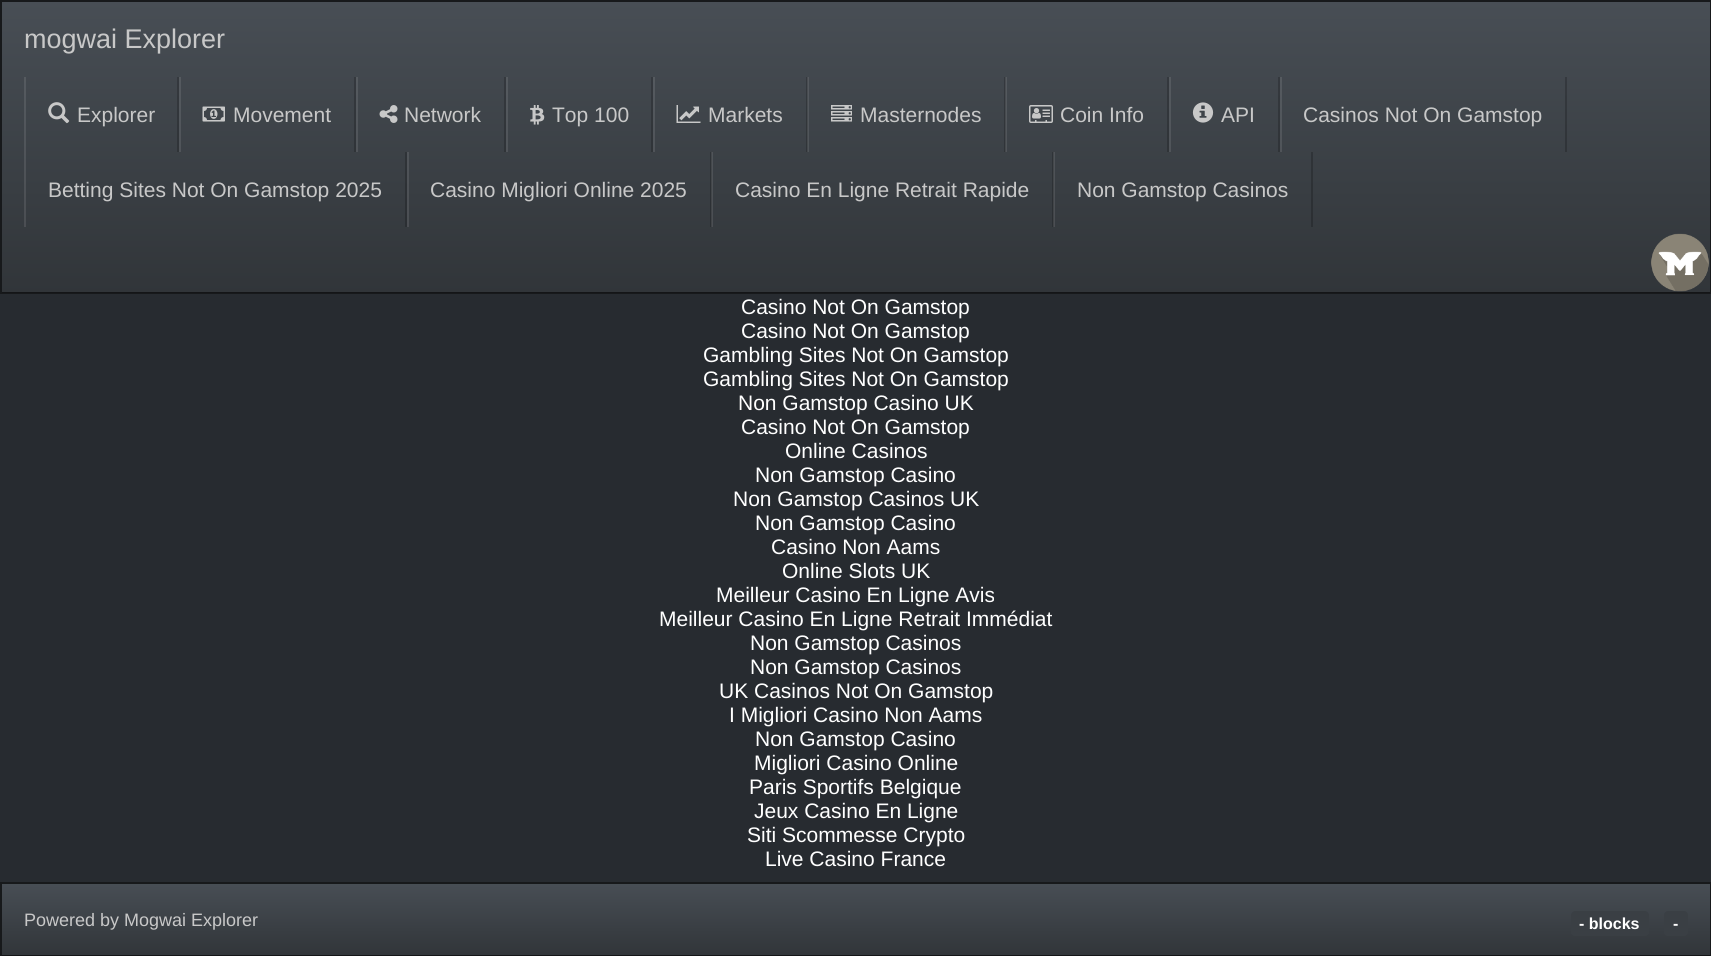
#include <cairo.h>
#include <math.h>
#include <stddef.h>

typedef struct { double x, y; const char *s; } line_t;

static void ink(cairo_t *ctx, unsigned color) {
    cairo_set_source_rgb(ctx, (color >> 16) / 255.0, (color >> 8 & 255) / 255.0, (color & 255) / 255.0);
}

static void round_path(cairo_t *ctx, double x, double y, double w, double h, double r) {
    cairo_new_sub_path(ctx);
    cairo_arc(ctx, x + w - r, y + h - r, r, 0, M_PI / 2);
    cairo_arc(ctx, x + r, y + h - r, r, M_PI / 2, M_PI);
    cairo_arc(ctx, x + r, y + r, r, M_PI, 1.5 * M_PI);
    cairo_arc(ctx, x + w - r, y + r, r, 1.5 * M_PI, 2 * M_PI);
    cairo_close_path(ctx);
}

static void paste(cairo_t *ctx, const char *path, double x, double y, double w, double h) {
    cairo_surface_t *image = cairo_image_surface_create_from_png(path);
    cairo_save(ctx);
    cairo_set_source_surface(ctx, image, x, y);
    cairo_rectangle(ctx, x, y, w, h);
    cairo_fill(ctx);
    cairo_restore(ctx);
    cairo_surface_destroy(image);
}

int main(void) {
    cairo_surface_t *surface = cairo_image_surface_create(CAIRO_FORMAT_RGB24, 1711, 956);
    cairo_t *ctx = cairo_create(surface);
    cairo_font_options_t *options = cairo_font_options_create();
    cairo_font_options_set_hint_metrics(options, CAIRO_HINT_METRICS_OFF);
    cairo_font_options_set_hint_style(options, CAIRO_HINT_STYLE_NONE);
    cairo_set_font_options(ctx, options);
    cairo_set_miter_limit(ctx, 4);
    cairo_pattern_t *gradient;
    ink(ctx, 0x272B30);
    cairo_paint(ctx);
    ink(ctx, 0x3A3F44);
    cairo_rectangle(ctx, 0, 0, 1711, 294);
    cairo_fill(ctx);
    gradient = cairo_pattern_create_linear(856, 1.5, 856, 293);
    cairo_pattern_add_color_stop_rgba(gradient, 0, 0.282, 0.306, 0.333, 1);
    cairo_pattern_add_color_stop_rgba(gradient, 0.6, 0.227, 0.247, 0.267, 1);
    cairo_pattern_add_color_stop_rgba(gradient, 1, 0.192, 0.208, 0.224, 1);
    cairo_set_source(ctx, gradient);
    cairo_pattern_destroy(gradient);
    cairo_rectangle(ctx, 2, 2, 1708, 291);
    cairo_fill(ctx);
    gradient = cairo_pattern_create_linear(856, 1.5, 856, 293);
    cairo_pattern_add_color_stop_rgba(gradient, 0, 0.353, 0.376, 0.4, 1);
    cairo_pattern_add_color_stop_rgba(gradient, 0.6, 0.306, 0.322, 0.341, 1);
    cairo_pattern_add_color_stop_rgba(gradient, 1, 0.275, 0.286, 0.302, 1);
    cairo_set_source(ctx, gradient);
    cairo_pattern_destroy(gradient);
    cairo_rectangle(ctx, 1054, 152, 1, 75);
    cairo_fill(ctx);
    gradient = cairo_pattern_create_linear(856, 1.5, 856, 293);
    cairo_pattern_add_color_stop_rgba(gradient, 0, 0.227, 0.243, 0.267, 1);
    cairo_pattern_add_color_stop_rgba(gradient, 0.6, 0.18, 0.196, 0.212, 1);
    cairo_pattern_add_color_stop_rgba(gradient, 1, 0.153, 0.165, 0.18, 1);
    cairo_set_source(ctx, gradient);
    cairo_pattern_destroy(gradient);
    cairo_rectangle(ctx, 1311, 152, 2, 75);
    cairo_fill(ctx);
    gradient = cairo_pattern_create_linear(856, 1.5, 856, 293);
    cairo_pattern_add_color_stop_rgba(gradient, 0, 0.353, 0.376, 0.4, 1);
    cairo_pattern_add_color_stop_rgba(gradient, 0.6, 0.306, 0.322, 0.341, 1);
    cairo_pattern_add_color_stop_rgba(gradient, 1, 0.275, 0.286, 0.302, 1);
    cairo_set_source(ctx, gradient);
    cairo_pattern_destroy(gradient);
    cairo_rectangle(ctx, 712, 152, 1, 75);
    cairo_fill(ctx);
    gradient = cairo_pattern_create_linear(856, 1.5, 856, 293);
    cairo_pattern_add_color_stop_rgba(gradient, 0, 0.227, 0.243, 0.267, 1);
    cairo_pattern_add_color_stop_rgba(gradient, 0.6, 0.18, 0.196, 0.212, 1);
    cairo_pattern_add_color_stop_rgba(gradient, 1, 0.153, 0.165, 0.18, 1);
    cairo_set_source(ctx, gradient);
    cairo_pattern_destroy(gradient);
    cairo_rectangle(ctx, 1052, 152, 1, 75);
    cairo_fill(ctx);
    gradient = cairo_pattern_create_linear(856, 1.5, 856, 293);
    cairo_pattern_add_color_stop_rgba(gradient, 0, 0.306, 0.318, 0.341, 1);
    cairo_pattern_add_color_stop_rgba(gradient, 0.6, 0.263, 0.278, 0.29, 1);
    cairo_pattern_add_color_stop_rgba(gradient, 1, 0.239, 0.247, 0.263, 1);
    cairo_set_source(ctx, gradient);
    cairo_pattern_destroy(gradient);
    cairo_rectangle(ctx, 1053, 152, 1, 75);
    cairo_fill(ctx);
    gradient = cairo_pattern_create_linear(856, 1.5, 856, 293);
    cairo_pattern_add_color_stop_rgba(gradient, 0, 0.353, 0.376, 0.4, 1);
    cairo_pattern_add_color_stop_rgba(gradient, 0.6, 0.306, 0.322, 0.341, 1);
    cairo_pattern_add_color_stop_rgba(gradient, 1, 0.275, 0.286, 0.302, 1);
    cairo_set_source(ctx, gradient);
    cairo_pattern_destroy(gradient);
    cairo_rectangle(ctx, 407, 152, 2, 75);
    cairo_fill(ctx);
    gradient = cairo_pattern_create_linear(856, 1.5, 856, 293);
    cairo_pattern_add_color_stop_rgba(gradient, 0, 0.227, 0.243, 0.267, 1);
    cairo_pattern_add_color_stop_rgba(gradient, 0.6, 0.18, 0.196, 0.212, 1);
    cairo_pattern_add_color_stop_rgba(gradient, 1, 0.153, 0.165, 0.18, 1);
    cairo_set_source(ctx, gradient);
    cairo_pattern_destroy(gradient);
    cairo_rectangle(ctx, 710, 152, 1, 75);
    cairo_fill(ctx);
    gradient = cairo_pattern_create_linear(856, 1.5, 856, 293);
    cairo_pattern_add_color_stop_rgba(gradient, 0, 0.306, 0.318, 0.341, 1);
    cairo_pattern_add_color_stop_rgba(gradient, 0.6, 0.263, 0.278, 0.29, 1);
    cairo_pattern_add_color_stop_rgba(gradient, 1, 0.239, 0.247, 0.263, 1);
    cairo_set_source(ctx, gradient);
    cairo_pattern_destroy(gradient);
    cairo_rectangle(ctx, 711, 152, 1, 75);
    cairo_fill(ctx);
    gradient = cairo_pattern_create_linear(856, 1.5, 856, 293);
    cairo_pattern_add_color_stop_rgba(gradient, 0, 0.353, 0.376, 0.4, 1);
    cairo_pattern_add_color_stop_rgba(gradient, 0.6, 0.306, 0.322, 0.341, 1);
    cairo_pattern_add_color_stop_rgba(gradient, 1, 0.275, 0.286, 0.302, 1);
    cairo_set_source(ctx, gradient);
    cairo_pattern_destroy(gradient);
    cairo_rectangle(ctx, 24, 152, 2, 75);
    cairo_fill(ctx);
    gradient = cairo_pattern_create_linear(856, 1.5, 856, 293);
    cairo_pattern_add_color_stop_rgba(gradient, 0, 0.227, 0.243, 0.267, 1);
    cairo_pattern_add_color_stop_rgba(gradient, 0.6, 0.18, 0.196, 0.212, 1);
    cairo_pattern_add_color_stop_rgba(gradient, 1, 0.153, 0.165, 0.18, 1);
    cairo_set_source(ctx, gradient);
    cairo_pattern_destroy(gradient);
    cairo_rectangle(ctx, 405, 152, 2, 75);
    cairo_fill(ctx);
    gradient = cairo_pattern_create_linear(856, 1.5, 856, 293);
    cairo_pattern_add_color_stop_rgba(gradient, 0, 0.353, 0.376, 0.4, 1);
    cairo_pattern_add_color_stop_rgba(gradient, 0.6, 0.306, 0.322, 0.341, 1);
    cairo_pattern_add_color_stop_rgba(gradient, 1, 0.275, 0.286, 0.302, 1);
    cairo_set_source(ctx, gradient);
    cairo_pattern_destroy(gradient);
    cairo_rectangle(ctx, 1280, 77, 2, 75);
    cairo_fill(ctx);
    gradient = cairo_pattern_create_linear(856, 1.5, 856, 293);
    cairo_pattern_add_color_stop_rgba(gradient, 0, 0.227, 0.243, 0.267, 1);
    cairo_pattern_add_color_stop_rgba(gradient, 0.6, 0.18, 0.196, 0.212, 1);
    cairo_pattern_add_color_stop_rgba(gradient, 1, 0.153, 0.165, 0.18, 1);
    cairo_set_source(ctx, gradient);
    cairo_pattern_destroy(gradient);
    cairo_rectangle(ctx, 1565, 77, 2, 75);
    cairo_fill(ctx);
    gradient = cairo_pattern_create_linear(856, 1.5, 856, 293);
    cairo_pattern_add_color_stop_rgba(gradient, 0, 0.353, 0.376, 0.4, 1);
    cairo_pattern_add_color_stop_rgba(gradient, 0.6, 0.306, 0.322, 0.341, 1);
    cairo_pattern_add_color_stop_rgba(gradient, 1, 0.275, 0.286, 0.302, 1);
    cairo_set_source(ctx, gradient);
    cairo_pattern_destroy(gradient);
    cairo_rectangle(ctx, 1169, 77, 2, 75);
    cairo_fill(ctx);
    gradient = cairo_pattern_create_linear(856, 1.5, 856, 293);
    cairo_pattern_add_color_stop_rgba(gradient, 0, 0.227, 0.243, 0.267, 1);
    cairo_pattern_add_color_stop_rgba(gradient, 0.6, 0.18, 0.196, 0.212, 1);
    cairo_pattern_add_color_stop_rgba(gradient, 1, 0.153, 0.165, 0.18, 1);
    cairo_set_source(ctx, gradient);
    cairo_pattern_destroy(gradient);
    cairo_rectangle(ctx, 1278, 77, 2, 75);
    cairo_fill(ctx);
    gradient = cairo_pattern_create_linear(856, 1.5, 856, 293);
    cairo_pattern_add_color_stop_rgba(gradient, 0, 0.353, 0.376, 0.4, 1);
    cairo_pattern_add_color_stop_rgba(gradient, 0.6, 0.306, 0.322, 0.341, 1);
    cairo_pattern_add_color_stop_rgba(gradient, 1, 0.275, 0.286, 0.302, 1);
    cairo_set_source(ctx, gradient);
    cairo_pattern_destroy(gradient);
    cairo_rectangle(ctx, 1006, 77, 1, 75);
    cairo_fill(ctx);
    gradient = cairo_pattern_create_linear(856, 1.5, 856, 293);
    cairo_pattern_add_color_stop_rgba(gradient, 0, 0.227, 0.243, 0.267, 1);
    cairo_pattern_add_color_stop_rgba(gradient, 0.6, 0.18, 0.196, 0.212, 1);
    cairo_pattern_add_color_stop_rgba(gradient, 1, 0.153, 0.165, 0.18, 1);
    cairo_set_source(ctx, gradient);
    cairo_pattern_destroy(gradient);
    cairo_rectangle(ctx, 1167, 77, 2, 75);
    cairo_fill(ctx);
    cairo_rectangle(ctx, 1004, 77, 1, 75);
    cairo_fill(ctx);
    gradient = cairo_pattern_create_linear(856, 1.5, 856, 293);
    cairo_pattern_add_color_stop_rgba(gradient, 0, 0.306, 0.318, 0.341, 1);
    cairo_pattern_add_color_stop_rgba(gradient, 0.6, 0.263, 0.278, 0.29, 1);
    cairo_pattern_add_color_stop_rgba(gradient, 1, 0.239, 0.247, 0.263, 1);
    cairo_set_source(ctx, gradient);
    cairo_pattern_destroy(gradient);
    cairo_rectangle(ctx, 1005, 77, 1, 75);
    cairo_fill(ctx);
    gradient = cairo_pattern_create_linear(856, 1.5, 856, 293);
    cairo_pattern_add_color_stop_rgba(gradient, 0, 0.353, 0.376, 0.4, 1);
    cairo_pattern_add_color_stop_rgba(gradient, 0.6, 0.306, 0.322, 0.341, 1);
    cairo_pattern_add_color_stop_rgba(gradient, 1, 0.275, 0.286, 0.302, 1);
    cairo_set_source(ctx, gradient);
    cairo_pattern_destroy(gradient);
    cairo_rectangle(ctx, 653, 77, 2, 75);
    cairo_fill(ctx);
    cairo_rectangle(ctx, 506, 77, 2, 75);
    cairo_fill(ctx);
    gradient = cairo_pattern_create_linear(856, 1.5, 856, 293);
    cairo_pattern_add_color_stop_rgba(gradient, 0, 0.227, 0.243, 0.267, 1);
    cairo_pattern_add_color_stop_rgba(gradient, 0.6, 0.18, 0.196, 0.212, 1);
    cairo_pattern_add_color_stop_rgba(gradient, 1, 0.153, 0.165, 0.18, 1);
    cairo_set_source(ctx, gradient);
    cairo_pattern_destroy(gradient);
    cairo_rectangle(ctx, 651, 77, 2, 75);
    cairo_fill(ctx);
    gradient = cairo_pattern_create_linear(856, 1.5, 856, 293);
    cairo_pattern_add_color_stop_rgba(gradient, 0, 0.353, 0.376, 0.4, 1);
    cairo_pattern_add_color_stop_rgba(gradient, 0.6, 0.306, 0.322, 0.341, 1);
    cairo_pattern_add_color_stop_rgba(gradient, 1, 0.275, 0.286, 0.302, 1);
    cairo_set_source(ctx, gradient);
    cairo_pattern_destroy(gradient);
    cairo_rectangle(ctx, 356, 77, 2, 75);
    cairo_fill(ctx);
    gradient = cairo_pattern_create_linear(856, 1.5, 856, 293);
    cairo_pattern_add_color_stop_rgba(gradient, 0, 0.227, 0.243, 0.267, 1);
    cairo_pattern_add_color_stop_rgba(gradient, 0.6, 0.18, 0.196, 0.212, 1);
    cairo_pattern_add_color_stop_rgba(gradient, 1, 0.153, 0.165, 0.18, 1);
    cairo_set_source(ctx, gradient);
    cairo_pattern_destroy(gradient);
    cairo_rectangle(ctx, 504, 77, 2, 75);
    cairo_fill(ctx);
    gradient = cairo_pattern_create_linear(856, 1.5, 856, 293);
    cairo_pattern_add_color_stop_rgba(gradient, 0, 0.353, 0.376, 0.4, 1);
    cairo_pattern_add_color_stop_rgba(gradient, 0.6, 0.306, 0.322, 0.341, 1);
    cairo_pattern_add_color_stop_rgba(gradient, 1, 0.275, 0.286, 0.302, 1);
    cairo_set_source(ctx, gradient);
    cairo_pattern_destroy(gradient);
    cairo_rectangle(ctx, 179, 77, 2, 75);
    cairo_fill(ctx);
    gradient = cairo_pattern_create_linear(856, 1.5, 856, 293);
    cairo_pattern_add_color_stop_rgba(gradient, 0, 0.227, 0.243, 0.267, 1);
    cairo_pattern_add_color_stop_rgba(gradient, 0.6, 0.18, 0.196, 0.212, 1);
    cairo_pattern_add_color_stop_rgba(gradient, 1, 0.153, 0.165, 0.18, 1);
    cairo_set_source(ctx, gradient);
    cairo_pattern_destroy(gradient);
    cairo_rectangle(ctx, 354, 77, 2, 75);
    cairo_fill(ctx);
    gradient = cairo_pattern_create_linear(856, 1.5, 856, 293);
    cairo_pattern_add_color_stop_rgba(gradient, 0, 0.353, 0.376, 0.4, 1);
    cairo_pattern_add_color_stop_rgba(gradient, 0.6, 0.306, 0.322, 0.341, 1);
    cairo_pattern_add_color_stop_rgba(gradient, 1, 0.275, 0.286, 0.302, 1);
    cairo_set_source(ctx, gradient);
    cairo_pattern_destroy(gradient);
    cairo_rectangle(ctx, 24, 77, 2, 75);
    cairo_fill(ctx);
    gradient = cairo_pattern_create_linear(856, 1.5, 856, 293);
    cairo_pattern_add_color_stop_rgba(gradient, 0, 0.227, 0.243, 0.267, 1);
    cairo_pattern_add_color_stop_rgba(gradient, 0.6, 0.18, 0.196, 0.212, 1);
    cairo_pattern_add_color_stop_rgba(gradient, 1, 0.153, 0.165, 0.18, 1);
    cairo_set_source(ctx, gradient);
    cairo_pattern_destroy(gradient);
    cairo_rectangle(ctx, 177, 77, 2, 75);
    cairo_fill(ctx);
    cairo_rectangle(ctx, 1, 1, 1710, 292);
    cairo_set_source_rgba(ctx, 0, 0, 0, 0.6);
    cairo_stroke(ctx);
    cairo_select_font_face(ctx, "Liberation Sans", CAIRO_FONT_SLANT_NORMAL, CAIRO_FONT_WEIGHT_NORMAL);
    cairo_set_font_size(ctx, 27);
    ink(ctx, 0xC8C8C8);
    cairo_move_to(ctx, 24, 48);
    cairo_show_text(ctx, "mogwai Explorer");
    paste(ctx, "media/1.png", 48, 102, 22, 22);
    cairo_set_font_size(ctx, 21);
    cairo_move_to(ctx, 77, 122);
    cairo_show_text(ctx, "Explorer");
    paste(ctx, "media/2.png", 202, 106, 23, 16);
    cairo_move_to(ctx, 233, 122);
    cairo_show_text(ctx, "Movement");
    paste(ctx, "media/3.png", 379, 105, 19, 18);
    cairo_move_to(ctx, 404, 122);
    cairo_show_text(ctx, "Network");
    paste(ctx, "media/4.png", 530, 105, 15, 20);
    cairo_move_to(ctx, 552, 122);
    cairo_show_text(ctx, "Top 100");
    cairo_set_source_rgba(ctx, 0, 0, 0, 0.2);
    cairo_rectangle(ctx, 806, 77, 2, 75);
    cairo_fill(ctx);
    paste(ctx, "media/5.png", 676, 105, 25, 18);
    ink(ctx, 0xC8C8C8);
    cairo_move_to(ctx, 708, 122);
    cairo_show_text(ctx, "Markets");
    cairo_set_source_rgba(ctx, 1, 1, 1, 0.1);
    cairo_rectangle(ctx, 807, 77, 2, 75);
    cairo_fill(ctx);
    paste(ctx, "media/6.png", 831, 105, 21, 17);
    ink(ctx, 0xC8C8C8);
    cairo_move_to(ctx, 860, 122);
    cairo_show_text(ctx, "Masternodes");
    paste(ctx, "media/7.png", 1029, 105, 24, 18);
    cairo_move_to(ctx, 1060, 122);
    cairo_show_text(ctx, "Coin Info");
    paste(ctx, "media/8.png", 1192, 102, 22, 21);
    {
        static const line_t items[] = {
            {1221, 122, "API"},
            {1303, 122, "Casinos Not On Gamstop"},
            {48, 197, "Betting Sites Not On Gamstop 2025"},
            {430, 197, "Casino Migliori Online 2025"},
            {735, 197, "Casino En Ligne Retrait Rapide"},
            {1077, 197, "Non Gamstop Casinos"},
        };
        for (size_t i = 0; i < sizeof items / sizeof *items; i++) {
            cairo_move_to(ctx, items[i].x, items[i].y);
            cairo_show_text(ctx, items[i].s);
        }
    }
    paste(ctx, "media/9.png", 1651, 233, 58, 59);
    ink(ctx, 0xFFFFFF);
    {
        static const line_t items[] = {
            {741, 314, "Casino Not On Gamstop"},
            {741, 338, "Casino Not On Gamstop"},
            {703, 362, "Gambling Sites Not On Gamstop"},
            {703, 386, "Gambling Sites Not On Gamstop"},
            {738, 410, "Non Gamstop Casino UK"},
            {741, 434, "Casino Not On Gamstop"},
            {785, 458, "Online Casinos"},
            {755, 482, "Non Gamstop Casino"},
            {733, 506, "Non Gamstop Casinos UK"},
            {755, 530, "Non Gamstop Casino"},
            {771, 554, "Casino Non Aams"},
            {782, 578, "Online Slots UK"},
            {716, 602, "Meilleur Casino En Ligne Avis"},
            {659, 626, "Meilleur Casino En Ligne Retrait Immédiat"},
            {750, 650, "Non Gamstop Casinos"},
            {750, 674, "Non Gamstop Casinos"},
            {719, 698, "UK Casinos Not On Gamstop"},
            {729, 722, "I Migliori Casino Non Aams"},
            {755, 746, "Non Gamstop Casino"},
            {754, 770, "Migliori Casino Online"},
            {749, 794, "Paris Sportifs Belgique"},
            {754, 818, "Jeux Casino En Ligne"},
            {747, 842, "Siti Scommesse Crypto"},
            {765, 866, "Live Casino France"},
        };
        for (size_t i = 0; i < sizeof items / sizeof *items; i++) {
            cairo_move_to(ctx, items[i].x, items[i].y);
            cairo_show_text(ctx, items[i].s);
        }
    }
    ink(ctx, 0x3A3F44);
    cairo_rectangle(ctx, 0, 882, 1711, 74);
    cairo_fill(ctx);
    gradient = cairo_pattern_create_linear(856, 883, 856, 956);
    cairo_pattern_add_color_stop_rgba(gradient, 0, 0.282, 0.306, 0.333, 1);
    cairo_pattern_add_color_stop_rgba(gradient, 0.6, 0.227, 0.247, 0.267, 1);
    cairo_pattern_add_color_stop_rgba(gradient, 1, 0.192, 0.208, 0.224, 1);
    cairo_set_source(ctx, gradient);
    cairo_pattern_destroy(gradient);
    cairo_rectangle(ctx, 2, 884, 1708, 72);
    cairo_fill(ctx);
    cairo_rectangle(ctx, 1, 883, 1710, 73);
    cairo_set_source_rgba(ctx, 0, 0, 0, 0.6);
    cairo_stroke(ctx);
    cairo_set_font_size(ctx, 18);
    ink(ctx, 0xC8C8C8);
    cairo_move_to(ctx, 24, 926);
    cairo_show_text(ctx, "Powered by Mogwai Explorer");
    ink(ctx, 0x3A3F44);
    cairo_new_path(ctx);
    cairo_move_to(ctx, 1575, 911);
    cairo_line_to(ctx, 1584, 911);
    cairo_line_to(ctx, 1584, 936);
    cairo_line_to(ctx, 1575, 936);
    cairo_curve_to(ctx, 1573, 936, 1571, 934, 1571, 932);
    cairo_line_to(ctx, 1571, 915);
    cairo_curve_to(ctx, 1571, 913, 1573, 911, 1575, 911);
    cairo_close_path(ctx);
    cairo_fill(ctx);
    cairo_new_path(ctx);
    cairo_move_to(ctx, 1584, 911);
    cairo_line_to(ctx, 1645, 911);
    cairo_curve_to(ctx, 1647, 911, 1649, 913, 1649, 915);
    cairo_line_to(ctx, 1649, 932);
    cairo_curve_to(ctx, 1649, 934, 1647, 936, 1645, 936);
    cairo_line_to(ctx, 1584, 936);
    cairo_close_path(ctx);
    cairo_fill(ctx);
    cairo_select_font_face(ctx, "Liberation Sans", CAIRO_FONT_SLANT_NORMAL, CAIRO_FONT_WEIGHT_BOLD);
    cairo_set_font_size(ctx, 16);
    ink(ctx, 0xFFFFFF);
    cairo_move_to(ctx, 1579, 929);
    cairo_show_text(ctx, "- blocks");
    ink(ctx, 0x3A3F44);
    round_path(ctx, 1664, 911, 24, 25, 4);
    cairo_fill(ctx);
    ink(ctx, 0xFFFFFF);
    cairo_move_to(ctx, 1673, 929);
    cairo_show_text(ctx, "-");
    cairo_surface_write_to_png(surface, "image.png");
    cairo_font_options_destroy(options);
    cairo_destroy(ctx);
    cairo_surface_destroy(surface);
    return 0;
}
